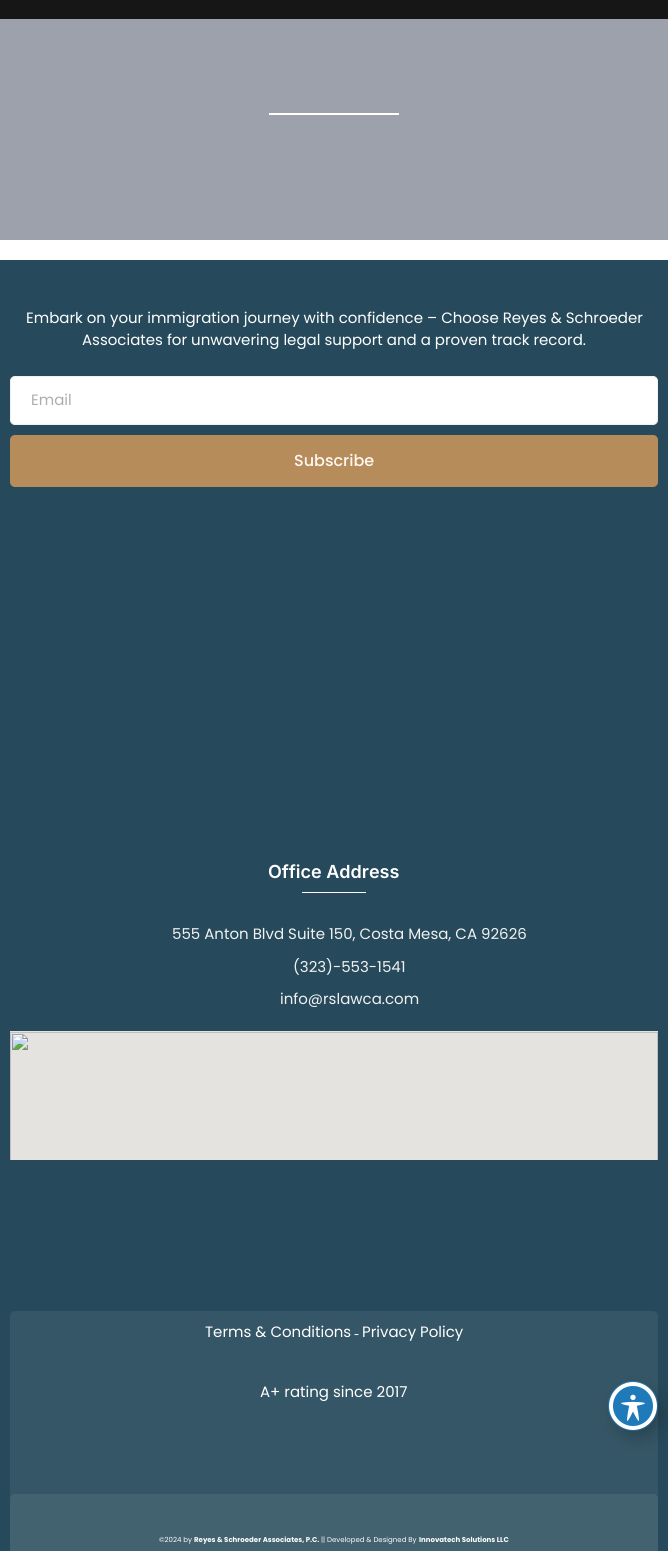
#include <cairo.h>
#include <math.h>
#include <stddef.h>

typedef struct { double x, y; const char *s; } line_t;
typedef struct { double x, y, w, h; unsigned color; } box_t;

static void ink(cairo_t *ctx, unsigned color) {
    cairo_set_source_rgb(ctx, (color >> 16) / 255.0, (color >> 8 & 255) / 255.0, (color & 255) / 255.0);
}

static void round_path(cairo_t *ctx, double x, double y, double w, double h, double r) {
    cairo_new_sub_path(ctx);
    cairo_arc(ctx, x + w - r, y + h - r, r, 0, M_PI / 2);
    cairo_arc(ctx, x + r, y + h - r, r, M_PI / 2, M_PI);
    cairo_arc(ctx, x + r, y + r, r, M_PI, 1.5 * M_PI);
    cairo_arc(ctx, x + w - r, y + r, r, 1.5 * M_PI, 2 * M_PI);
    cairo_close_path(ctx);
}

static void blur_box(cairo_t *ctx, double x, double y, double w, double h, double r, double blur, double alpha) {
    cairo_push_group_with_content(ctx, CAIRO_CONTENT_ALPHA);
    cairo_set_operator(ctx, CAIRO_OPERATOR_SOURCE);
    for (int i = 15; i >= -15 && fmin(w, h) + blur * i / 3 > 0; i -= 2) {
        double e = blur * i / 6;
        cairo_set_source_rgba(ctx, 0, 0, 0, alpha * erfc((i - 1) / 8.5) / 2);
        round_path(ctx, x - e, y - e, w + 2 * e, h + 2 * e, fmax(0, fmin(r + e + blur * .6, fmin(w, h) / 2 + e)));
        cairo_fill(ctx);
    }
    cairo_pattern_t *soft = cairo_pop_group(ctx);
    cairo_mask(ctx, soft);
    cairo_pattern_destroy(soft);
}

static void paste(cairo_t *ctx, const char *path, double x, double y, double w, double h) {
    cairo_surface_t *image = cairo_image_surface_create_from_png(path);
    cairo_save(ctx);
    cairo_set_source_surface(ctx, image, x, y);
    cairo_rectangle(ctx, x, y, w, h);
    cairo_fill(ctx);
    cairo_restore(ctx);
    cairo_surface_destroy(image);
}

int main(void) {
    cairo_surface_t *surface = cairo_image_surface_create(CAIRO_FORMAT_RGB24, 668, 1551);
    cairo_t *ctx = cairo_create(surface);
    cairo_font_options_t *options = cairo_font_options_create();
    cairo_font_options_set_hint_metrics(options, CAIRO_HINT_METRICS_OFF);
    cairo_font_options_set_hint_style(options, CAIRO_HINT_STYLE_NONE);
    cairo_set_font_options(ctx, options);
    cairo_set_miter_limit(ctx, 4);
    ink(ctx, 0xFFFFFF);
    cairo_paint(ctx);
    {
        static const box_t items[] = {
            {0, 0, 668, 19, 0x161616},
            {0, 19, 668, 221, 0x9CA1AC},
            {269, 113, 130, 2, 0xFFFFFF},
            {0, 260, 668, 1291, 0x264A5B},
        };
        for (size_t i = 0; i < sizeof items / sizeof *items; i++) {
            ink(ctx, items[i].color);
            cairo_rectangle(ctx, items[i].x, items[i].y, items[i].w, items[i].h);
            cairo_fill(ctx);
        }
    }
    cairo_select_font_face(ctx, "Poppins", CAIRO_FONT_SLANT_NORMAL, CAIRO_FONT_WEIGHT_NORMAL);
    cairo_set_font_size(ctx, 15);
    ink(ctx, 0xFFFFFF);
    cairo_move_to(ctx, 26, 323);
    cairo_show_text(ctx, "Embark on your immigration journey with confidence – Choose Reyes & Schroeder");
    cairo_move_to(ctx, 82, 345);
    cairo_show_text(ctx, "Associates for unwavering legal support and a proven track record.");
    round_path(ctx, 10.5, 376.5, 647, 48, 4.5);
    cairo_fill_preserve(ctx);
    ink(ctx, 0xF1F1F1);
    cairo_set_line_width(ctx, 1);
    cairo_stroke(ctx);
    ink(ctx, 0xADADAD);
    cairo_move_to(ctx, 31, 405);
    cairo_show_text(ctx, "Email");
    ink(ctx, 0xB68C5A);
    round_path(ctx, 10, 435, 648, 52, 5);
    cairo_fill(ctx);
    cairo_select_font_face(ctx, "Poppins Medium", CAIRO_FONT_SLANT_NORMAL, CAIRO_FONT_WEIGHT_NORMAL);
    cairo_set_font_size(ctx, 16);
    ink(ctx, 0xFFF7F1);
    cairo_move_to(ctx, 294, 466);
    cairo_show_text(ctx, "Subscribe");
    cairo_select_font_face(ctx, "Inter SemiBold", CAIRO_FONT_SLANT_NORMAL, CAIRO_FONT_WEIGHT_NORMAL);
    cairo_set_font_size(ctx, 18);
    ink(ctx, 0xFFFFFF);
    cairo_move_to(ctx, 268, 878);
    cairo_show_text(ctx, "Office Address");
    cairo_rectangle(ctx, 302, 892, 64, 1);
    cairo_fill(ctx);
    cairo_select_font_face(ctx, "Poppins", CAIRO_FONT_SLANT_NORMAL, CAIRO_FONT_WEIGHT_NORMAL);
    cairo_set_font_size(ctx, 15);
    ink(ctx, 0xF1F1F1);
    {
        static const line_t items[] = {
            {172, 939, "555 Anton Blvd Suite 150, Costa Mesa, CA 92626"},
            {293, 972, "(323)-553-1541"},
            {280, 1004, "info@rslawca.com"},
        };
        for (size_t i = 0; i < sizeof items / sizeof *items; i++) {
            cairo_move_to(ctx, items[i].x, items[i].y);
            cairo_show_text(ctx, items[i].s);
        }
    }
    paste(ctx, "media/1.png", 10, 1031, 648, 129);
    ink(ctx, 0x355666);
    round_path(ctx, 10, 1311, 648, 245, 5);
    cairo_fill(ctx);
    ink(ctx, 0xFFFFFF);
    cairo_move_to(ctx, 205, 1337);
    cairo_show_text(ctx, "Terms & Conditions");
    cairo_select_font_face(ctx, "Poppins", CAIRO_FONT_SLANT_NORMAL, CAIRO_FONT_WEIGHT_BOLD);
    cairo_set_font_size(ctx, 7);
    cairo_move_to(ctx, 354, 1337);
    cairo_show_text(ctx, "–");
    cairo_select_font_face(ctx, "Poppins", CAIRO_FONT_SLANT_NORMAL, CAIRO_FONT_WEIGHT_NORMAL);
    cairo_set_font_size(ctx, 15);
    cairo_move_to(ctx, 362, 1337);
    cairo_show_text(ctx, "Privacy Policy");
    cairo_move_to(ctx, 260, 1397);
    cairo_show_text(ctx, "A+ rating since 2017");
    ink(ctx, 0x436270);
    round_path(ctx, 10, 1494, 648, 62, 5);
    cairo_fill(ctx);
    cairo_set_font_size(ctx, 7);
    ink(ctx, 0xFFFFFF);
    cairo_move_to(ctx, 159, 1542);
    cairo_show_text(ctx, "©2024 by");
    cairo_select_font_face(ctx, "Poppins", CAIRO_FONT_SLANT_NORMAL, CAIRO_FONT_WEIGHT_BOLD);
    cairo_move_to(ctx, 194, 1542);
    cairo_show_text(ctx, "Reyes & Schroeder Associates, P.C.");
    cairo_select_font_face(ctx, "Poppins", CAIRO_FONT_SLANT_NORMAL, CAIRO_FONT_WEIGHT_NORMAL);
    cairo_move_to(ctx, 321, 1542);
    cairo_show_text(ctx, "|| Developed & Designed By");
    cairo_select_font_face(ctx, "Poppins", CAIRO_FONT_SLANT_NORMAL, CAIRO_FONT_WEIGHT_BOLD);
    cairo_move_to(ctx, 419, 1542);
    cairo_show_text(ctx, "Innovatech Solutions LLC");
    cairo_new_path(ctx);
    cairo_arc(ctx, 633, 1406, 24.5, 0, 2 * M_PI);
    ink(ctx, 0x1E7AB9);
    cairo_stroke(ctx);
    ink(ctx, 0x000000);
    blur_box(ctx, 615, 1390, 48, 48, 24, 8, 0.2);
    ink(ctx, 0x1E7AB9);
    cairo_arc(ctx, 633, 1406, 22, 0, 2 * M_PI);
    cairo_fill_preserve(ctx);
    ink(ctx, 0xFFFFFF);
    cairo_set_line_width(ctx, 4);
    cairo_stroke(ctx);
    paste(ctx, "media/2.png", 621, 1394, 24, 27);
    cairo_surface_write_to_png(surface, "image.png");
    cairo_font_options_destroy(options);
    cairo_destroy(ctx);
    cairo_surface_destroy(surface);
    return 0;
}
